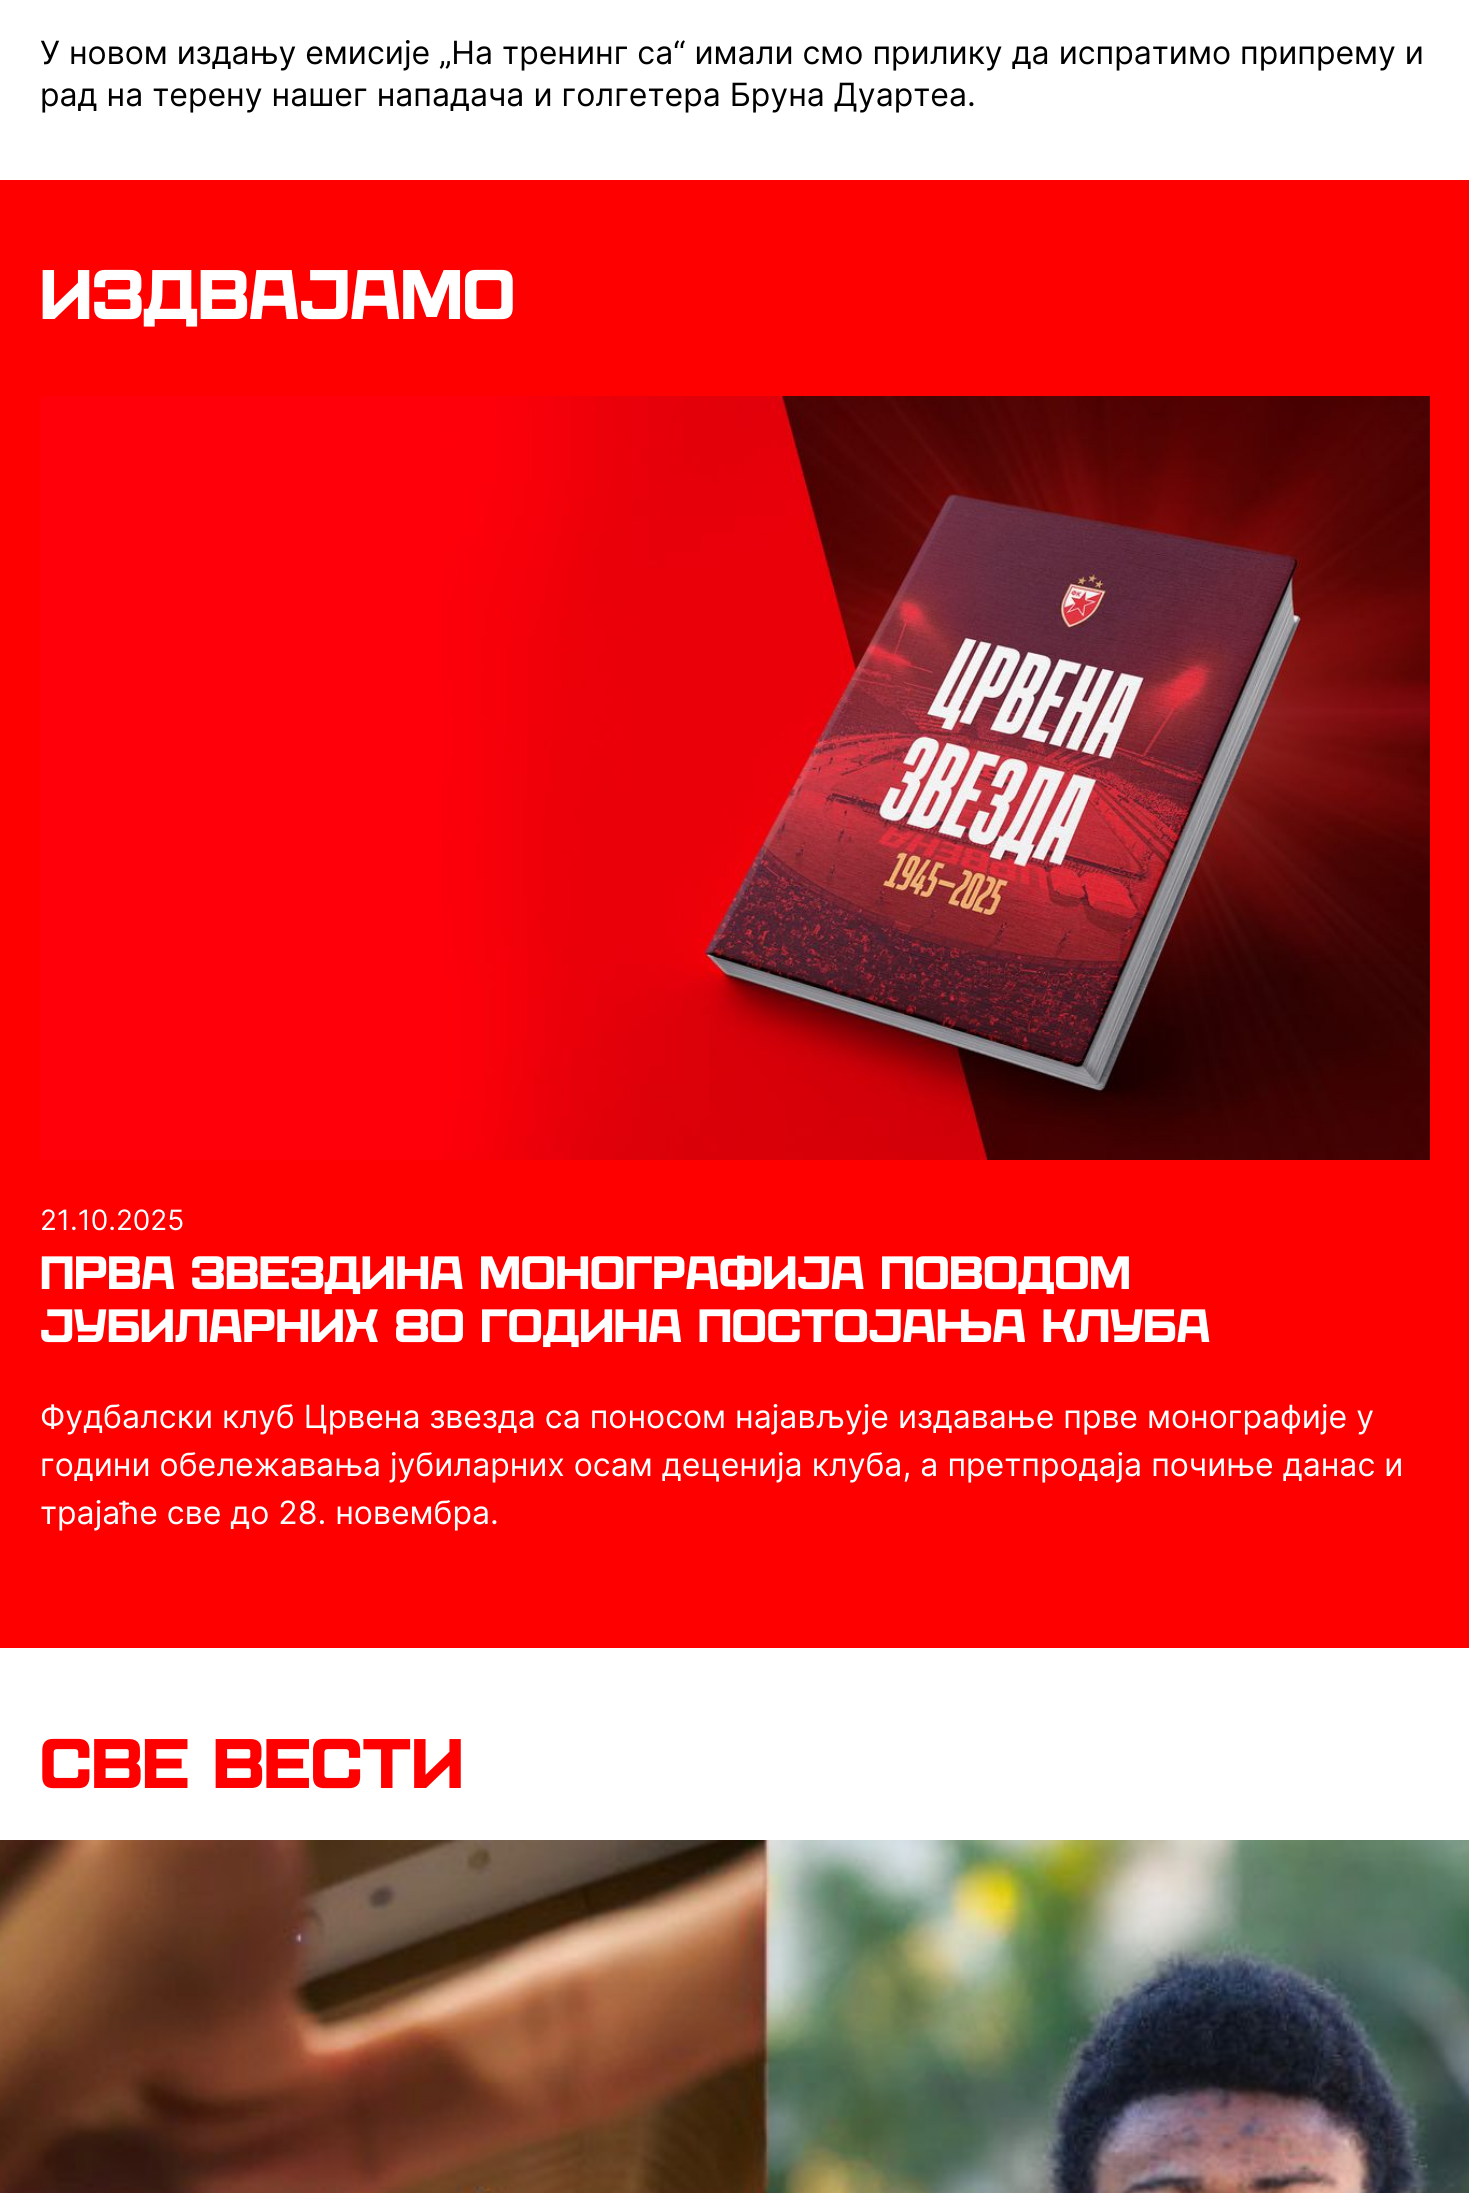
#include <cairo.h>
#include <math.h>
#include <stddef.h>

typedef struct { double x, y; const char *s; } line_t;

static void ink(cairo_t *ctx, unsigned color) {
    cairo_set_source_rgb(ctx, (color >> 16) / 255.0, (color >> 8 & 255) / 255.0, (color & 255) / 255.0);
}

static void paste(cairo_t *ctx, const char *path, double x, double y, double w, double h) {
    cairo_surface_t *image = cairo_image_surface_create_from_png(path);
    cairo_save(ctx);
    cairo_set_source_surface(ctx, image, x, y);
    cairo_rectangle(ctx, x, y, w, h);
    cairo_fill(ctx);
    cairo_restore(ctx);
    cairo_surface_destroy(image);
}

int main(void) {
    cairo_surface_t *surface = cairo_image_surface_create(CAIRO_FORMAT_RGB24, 1469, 2193);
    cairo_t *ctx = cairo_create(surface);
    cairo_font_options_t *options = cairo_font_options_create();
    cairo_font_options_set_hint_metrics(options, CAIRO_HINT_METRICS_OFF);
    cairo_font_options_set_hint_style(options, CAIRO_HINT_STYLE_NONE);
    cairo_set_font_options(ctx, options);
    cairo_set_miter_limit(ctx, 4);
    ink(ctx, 0xFFFFFF);
    cairo_paint(ctx);
    cairo_select_font_face(ctx, "Inter", CAIRO_FONT_SLANT_NORMAL, CAIRO_FONT_WEIGHT_NORMAL);
    cairo_set_font_size(ctx, 32);
    ink(ctx, 0x000000);
    cairo_move_to(ctx, 40, 64);
    cairo_show_text(ctx, "У новом издању емисије „На тренинг са“ имали смо прилику да испратимо припрему и");
    cairo_move_to(ctx, 40, 106);
    cairo_show_text(ctx, "рад на терену нашег нападача и голгетера Бруна Дуартеа.");
    ink(ctx, 0xFF0000);
    cairo_rectangle(ctx, 0, 180, 1469, 1468);
    cairo_fill(ctx);
    cairo_select_font_face(ctx, "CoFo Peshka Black", CAIRO_FONT_SLANT_NORMAL, CAIRO_FONT_WEIGHT_NORMAL);
    cairo_set_font_size(ctx, 72);
    ink(ctx, 0xFFFFFF);
    cairo_move_to(ctx, 40, 319);
    cairo_show_text(ctx, "Издвајамо");
    paste(ctx, "media/1.png", 40, 396, 1390, 764);
    cairo_select_font_face(ctx, "Inter", CAIRO_FONT_SLANT_NORMAL, CAIRO_FONT_WEIGHT_NORMAL);
    cairo_set_font_size(ctx, 28);
    cairo_move_to(ctx, 40, 1230);
    cairo_show_text(ctx, "21.10.2025");
    cairo_select_font_face(ctx, "CoFo Peshka Black", CAIRO_FONT_SLANT_NORMAL, CAIRO_FONT_WEIGHT_NORMAL);
    cairo_set_font_size(ctx, 48);
    cairo_move_to(ctx, 40, 1289);
    cairo_show_text(ctx, "Прва Звездина монографија поводом");
    cairo_move_to(ctx, 40, 1342);
    cairo_show_text(ctx, "јубиларних 80 година постојања клуба");
    cairo_select_font_face(ctx, "Inter", CAIRO_FONT_SLANT_NORMAL, CAIRO_FONT_WEIGHT_NORMAL);
    cairo_set_font_size(ctx, 32);
    {
        static const line_t items[] = {
            {40, 1428, "Фудбалски клуб Црвена звезда са поносом најављује издавање прве монографије у"},
            {40, 1476, "години обележавања јубиларних осам деценија клуба, а претпродаја почиње данас и"},
            {40, 1524, "трајаће све до 28. новембра."},
        };
        for (size_t i = 0; i < sizeof items / sizeof *items; i++) {
            cairo_move_to(ctx, items[i].x, items[i].y);
            cairo_show_text(ctx, items[i].s);
        }
    }
    cairo_select_font_face(ctx, "CoFo Peshka Black", CAIRO_FONT_SLANT_NORMAL, CAIRO_FONT_WEIGHT_NORMAL);
    cairo_set_font_size(ctx, 72);
    ink(ctx, 0xFF0000);
    cairo_move_to(ctx, 40, 1788);
    cairo_show_text(ctx, "све вести");
    paste(ctx, "media/2.png", 0, 1840, 1469, 353);
    cairo_surface_write_to_png(surface, "image.png");
    cairo_font_options_destroy(options);
    cairo_destroy(ctx);
    cairo_surface_destroy(surface);
    return 0;
}
